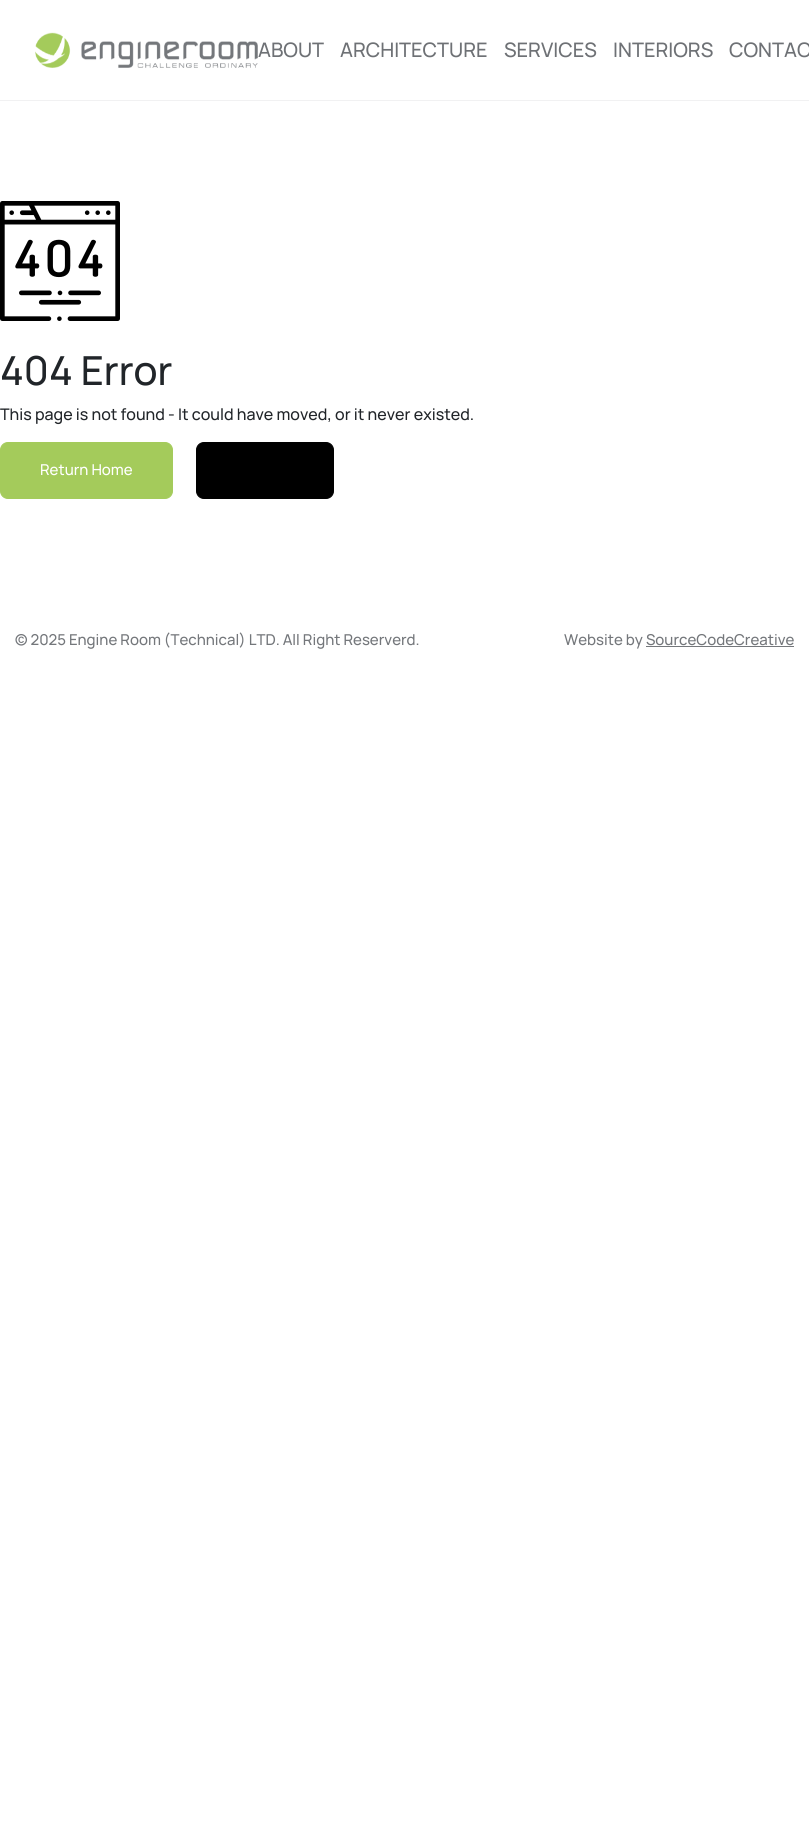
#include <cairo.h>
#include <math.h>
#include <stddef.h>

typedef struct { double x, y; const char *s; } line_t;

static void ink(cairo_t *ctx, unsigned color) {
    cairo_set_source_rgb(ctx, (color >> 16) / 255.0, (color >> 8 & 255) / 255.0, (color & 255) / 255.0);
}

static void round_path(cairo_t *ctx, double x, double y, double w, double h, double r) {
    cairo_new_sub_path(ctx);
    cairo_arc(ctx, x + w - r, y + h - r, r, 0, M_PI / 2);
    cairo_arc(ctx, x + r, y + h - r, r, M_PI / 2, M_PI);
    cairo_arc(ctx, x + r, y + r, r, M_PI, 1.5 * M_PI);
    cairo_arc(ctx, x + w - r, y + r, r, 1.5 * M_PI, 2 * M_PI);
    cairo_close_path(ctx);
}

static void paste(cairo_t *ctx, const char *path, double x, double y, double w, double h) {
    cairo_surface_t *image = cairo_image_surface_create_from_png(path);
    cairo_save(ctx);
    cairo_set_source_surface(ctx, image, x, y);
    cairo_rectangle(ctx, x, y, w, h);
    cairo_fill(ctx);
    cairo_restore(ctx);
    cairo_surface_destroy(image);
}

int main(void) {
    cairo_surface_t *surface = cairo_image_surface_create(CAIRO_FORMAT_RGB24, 809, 1828);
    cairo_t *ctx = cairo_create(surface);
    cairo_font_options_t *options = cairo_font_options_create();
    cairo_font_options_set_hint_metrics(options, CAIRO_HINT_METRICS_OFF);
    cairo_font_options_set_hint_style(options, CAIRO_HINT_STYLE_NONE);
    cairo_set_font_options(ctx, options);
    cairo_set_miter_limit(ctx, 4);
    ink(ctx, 0xFFFFFF);
    cairo_paint(ctx);
    ink(ctx, 0xF1F1F2);
    cairo_rectangle(ctx, 0, 100, 809, 1);
    cairo_fill(ctx);
    paste(ctx, "media/1.png", 35, 32, 223, 36);
    cairo_select_font_face(ctx, "Manrope Medium", CAIRO_FONT_SLANT_NORMAL, CAIRO_FONT_WEIGHT_NORMAL);
    cairo_set_font_size(ctx, 20);
    ink(ctx, 0x6E7175);
    {
        static const line_t items[] = {
            {258, 57, "ABOUT"},
            {340, 57, "ARCHITECTURE"},
            {504, 57, "SERVICES"},
            {613, 57, "INTERIORS"},
            {729, 57, "CONTAC"},
        };
        for (size_t i = 0; i < sizeof items / sizeof *items; i++) {
            cairo_move_to(ctx, items[i].x, items[i].y);
            cairo_show_text(ctx, items[i].s);
        }
    }
    paste(ctx, "media/2.png", 0, 201, 120, 120);
    cairo_set_font_size(ctx, 40);
    ink(ctx, 0x212529);
    cairo_move_to(ctx, 0, 385);
    cairo_show_text(ctx, "404 Error");
    cairo_set_font_size(ctx, 16);
    cairo_move_to(ctx, 0, 420);
    cairo_show_text(ctx, "This page is not found - It could have moved, or it never existed.");
    ink(ctx, 0xA4CB5B);
    round_path(ctx, 0.5, 442.5, 172, 56, 7.5);
    cairo_fill_preserve(ctx);
    cairo_set_line_width(ctx, 1);
    cairo_stroke(ctx);
    cairo_set_font_size(ctx, 15);
    ink(ctx, 0xFFFFFF);
    cairo_move_to(ctx, 40, 475);
    cairo_show_text(ctx, "Return Home");
    ink(ctx, 0x000000);
    round_path(ctx, 196.5, 442.5, 137, 56, 7.5);
    cairo_fill_preserve(ctx);
    cairo_stroke(ctx);
    ink(ctx, 0x74777B);
    cairo_move_to(ctx, 15, 645);
    cairo_show_text(ctx, "© 2025 Engine Room (Technical) LTD. All Right Reserverd.");
    cairo_move_to(ctx, 564, 645);
    cairo_show_text(ctx, "Website by SourceCodeCreative");
    cairo_rectangle(ctx, 646, 646, 148, 1);
    cairo_fill(ctx);
    cairo_surface_write_to_png(surface, "image.png");
    cairo_font_options_destroy(options);
    cairo_destroy(ctx);
    cairo_surface_destroy(surface);
    return 0;
}
